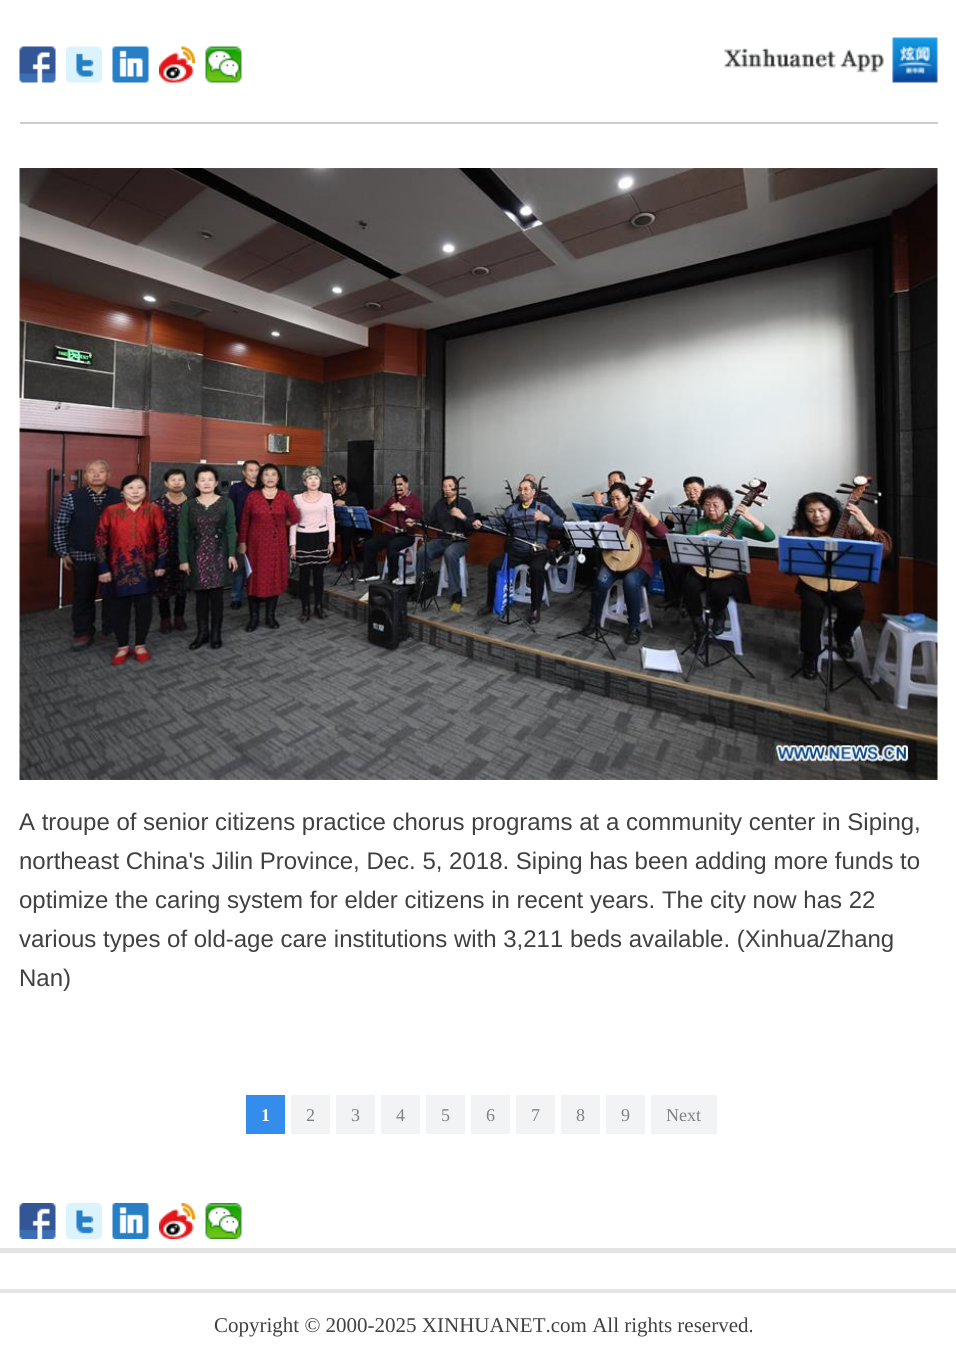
#include <cairo.h>
#include <math.h>
#include <stddef.h>

typedef struct { double x, y; const char *s; } line_t;

static void ink(cairo_t *ctx, unsigned color) {
    cairo_set_source_rgb(ctx, (color >> 16) / 255.0, (color >> 8 & 255) / 255.0, (color & 255) / 255.0);
}

static void paste(cairo_t *ctx, const char *path, double x, double y, double w, double h) {
    cairo_surface_t *image = cairo_image_surface_create_from_png(path);
    cairo_save(ctx);
    cairo_set_source_surface(ctx, image, x, y);
    cairo_rectangle(ctx, x, y, w, h);
    cairo_fill(ctx);
    cairo_restore(ctx);
    cairo_surface_destroy(image);
}

int main(void) {
    cairo_surface_t *surface = cairo_image_surface_create(CAIRO_FORMAT_RGB24, 956, 1358);
    cairo_t *ctx = cairo_create(surface);
    cairo_font_options_t *options = cairo_font_options_create();
    cairo_font_options_set_hint_metrics(options, CAIRO_HINT_METRICS_OFF);
    cairo_font_options_set_hint_style(options, CAIRO_HINT_STYLE_NONE);
    cairo_set_font_options(ctx, options);
    cairo_set_miter_limit(ctx, 4);
    ink(ctx, 0xFFFFFF);
    cairo_paint(ctx);
    paste(ctx, "media/1.png", 19, 46, 37, 37);
    paste(ctx, "media/2.png", 66, 46, 36, 37);
    paste(ctx, "media/3.png", 112, 46, 37, 37);
    paste(ctx, "media/4.png", 159, 46, 36, 37);
    paste(ctx, "media/5.png", 205, 46, 37, 37);
    paste(ctx, "media/6.png", 724, 37, 214, 46);
    ink(ctx, 0xCCCCCC);
    cairo_rectangle(ctx, 20, 122, 918, 2);
    cairo_fill(ctx);
    paste(ctx, "media/7.png", 19, 168, 919, 612);
    cairo_select_font_face(ctx, "Liberation Sans", CAIRO_FONT_SLANT_NORMAL, CAIRO_FONT_WEIGHT_NORMAL);
    cairo_set_font_size(ctx, 24);
    ink(ctx, 0x404040);
    {
        static const line_t items[] = {
            {19, 830, "A troupe of senior citizens practice chorus programs at a community center in Siping,"},
            {19, 869, "northeast China's Jilin Province, Dec. 5, 2018. Siping has been adding more funds to"},
            {19, 908, "optimize the caring system for elder citizens in recent years. The city now has 22"},
            {19, 947, "various types of old-age care institutions with 3,211 beds available. (Xinhua/Zhang"},
            {19, 986, "Nan)"},
        };
        for (size_t i = 0; i < sizeof items / sizeof *items; i++) {
            cairo_move_to(ctx, items[i].x, items[i].y);
            cairo_show_text(ctx, items[i].s);
        }
    }
    ink(ctx, 0x348CEC);
    cairo_rectangle(ctx, 246, 1095, 39, 39);
    cairo_fill(ctx);
    cairo_select_font_face(ctx, "Liberation Serif", CAIRO_FONT_SLANT_NORMAL, CAIRO_FONT_WEIGHT_BOLD);
    cairo_set_font_size(ctx, 18);
    ink(ctx, 0xFFFFFF);
    cairo_move_to(ctx, 261, 1121);
    cairo_show_text(ctx, "1");
    ink(ctx, 0xF1F3F5);
    cairo_rectangle(ctx, 291, 1095, 39, 39);
    cairo_fill(ctx);
    cairo_select_font_face(ctx, "Liberation Serif", CAIRO_FONT_SLANT_NORMAL, CAIRO_FONT_WEIGHT_NORMAL);
    ink(ctx, 0x818181);
    cairo_move_to(ctx, 306, 1121);
    cairo_show_text(ctx, "2");
    ink(ctx, 0xF1F3F5);
    cairo_rectangle(ctx, 336, 1095, 39, 39);
    cairo_fill(ctx);
    ink(ctx, 0x818181);
    cairo_move_to(ctx, 351, 1121);
    cairo_show_text(ctx, "3");
    ink(ctx, 0xF1F3F5);
    cairo_rectangle(ctx, 381, 1095, 39, 39);
    cairo_fill(ctx);
    ink(ctx, 0x818181);
    cairo_move_to(ctx, 396, 1121);
    cairo_show_text(ctx, "4");
    ink(ctx, 0xF1F3F5);
    cairo_rectangle(ctx, 426, 1095, 39, 39);
    cairo_fill(ctx);
    ink(ctx, 0x818181);
    cairo_move_to(ctx, 441, 1121);
    cairo_show_text(ctx, "5");
    ink(ctx, 0xF1F3F5);
    cairo_rectangle(ctx, 471, 1095, 39, 39);
    cairo_fill(ctx);
    ink(ctx, 0x818181);
    cairo_move_to(ctx, 486, 1121);
    cairo_show_text(ctx, "6");
    ink(ctx, 0xF1F3F5);
    cairo_rectangle(ctx, 516, 1095, 39, 39);
    cairo_fill(ctx);
    ink(ctx, 0x818181);
    cairo_move_to(ctx, 531, 1121);
    cairo_show_text(ctx, "7");
    ink(ctx, 0xF1F3F5);
    cairo_rectangle(ctx, 561, 1095, 39, 39);
    cairo_fill(ctx);
    ink(ctx, 0x818181);
    cairo_move_to(ctx, 576, 1121);
    cairo_show_text(ctx, "8");
    ink(ctx, 0xF1F3F5);
    cairo_rectangle(ctx, 606, 1095, 39, 39);
    cairo_fill(ctx);
    ink(ctx, 0x818181);
    cairo_move_to(ctx, 621, 1121);
    cairo_show_text(ctx, "9");
    ink(ctx, 0xF1F3F5);
    cairo_rectangle(ctx, 651, 1095, 66, 39);
    cairo_fill(ctx);
    ink(ctx, 0x818181);
    cairo_move_to(ctx, 666, 1121);
    cairo_show_text(ctx, "Next");
    paste(ctx, "media/8.png", 19, 1203, 37, 36);
    paste(ctx, "media/9.png", 66, 1203, 36, 36);
    paste(ctx, "media/10.png", 112, 1203, 37, 36);
    paste(ctx, "media/11.png", 159, 1203, 36, 36);
    paste(ctx, "media/12.png", 205, 1203, 37, 36);
    ink(ctx, 0xE4E4E4);
    cairo_rectangle(ctx, 0, 1248, 956, 5);
    cairo_fill(ctx);
    cairo_rectangle(ctx, 0, 1289, 956, 4);
    cairo_fill(ctx);
    cairo_set_font_size(ctx, 21);
    ink(ctx, 0x404040);
    cairo_move_to(ctx, 214, 1332);
    cairo_show_text(ctx, "Copyright © 2000-2025 XINHUANET.com All rights reserved.");
    cairo_surface_write_to_png(surface, "image.png");
    cairo_font_options_destroy(options);
    cairo_destroy(ctx);
    cairo_surface_destroy(surface);
    return 0;
}
